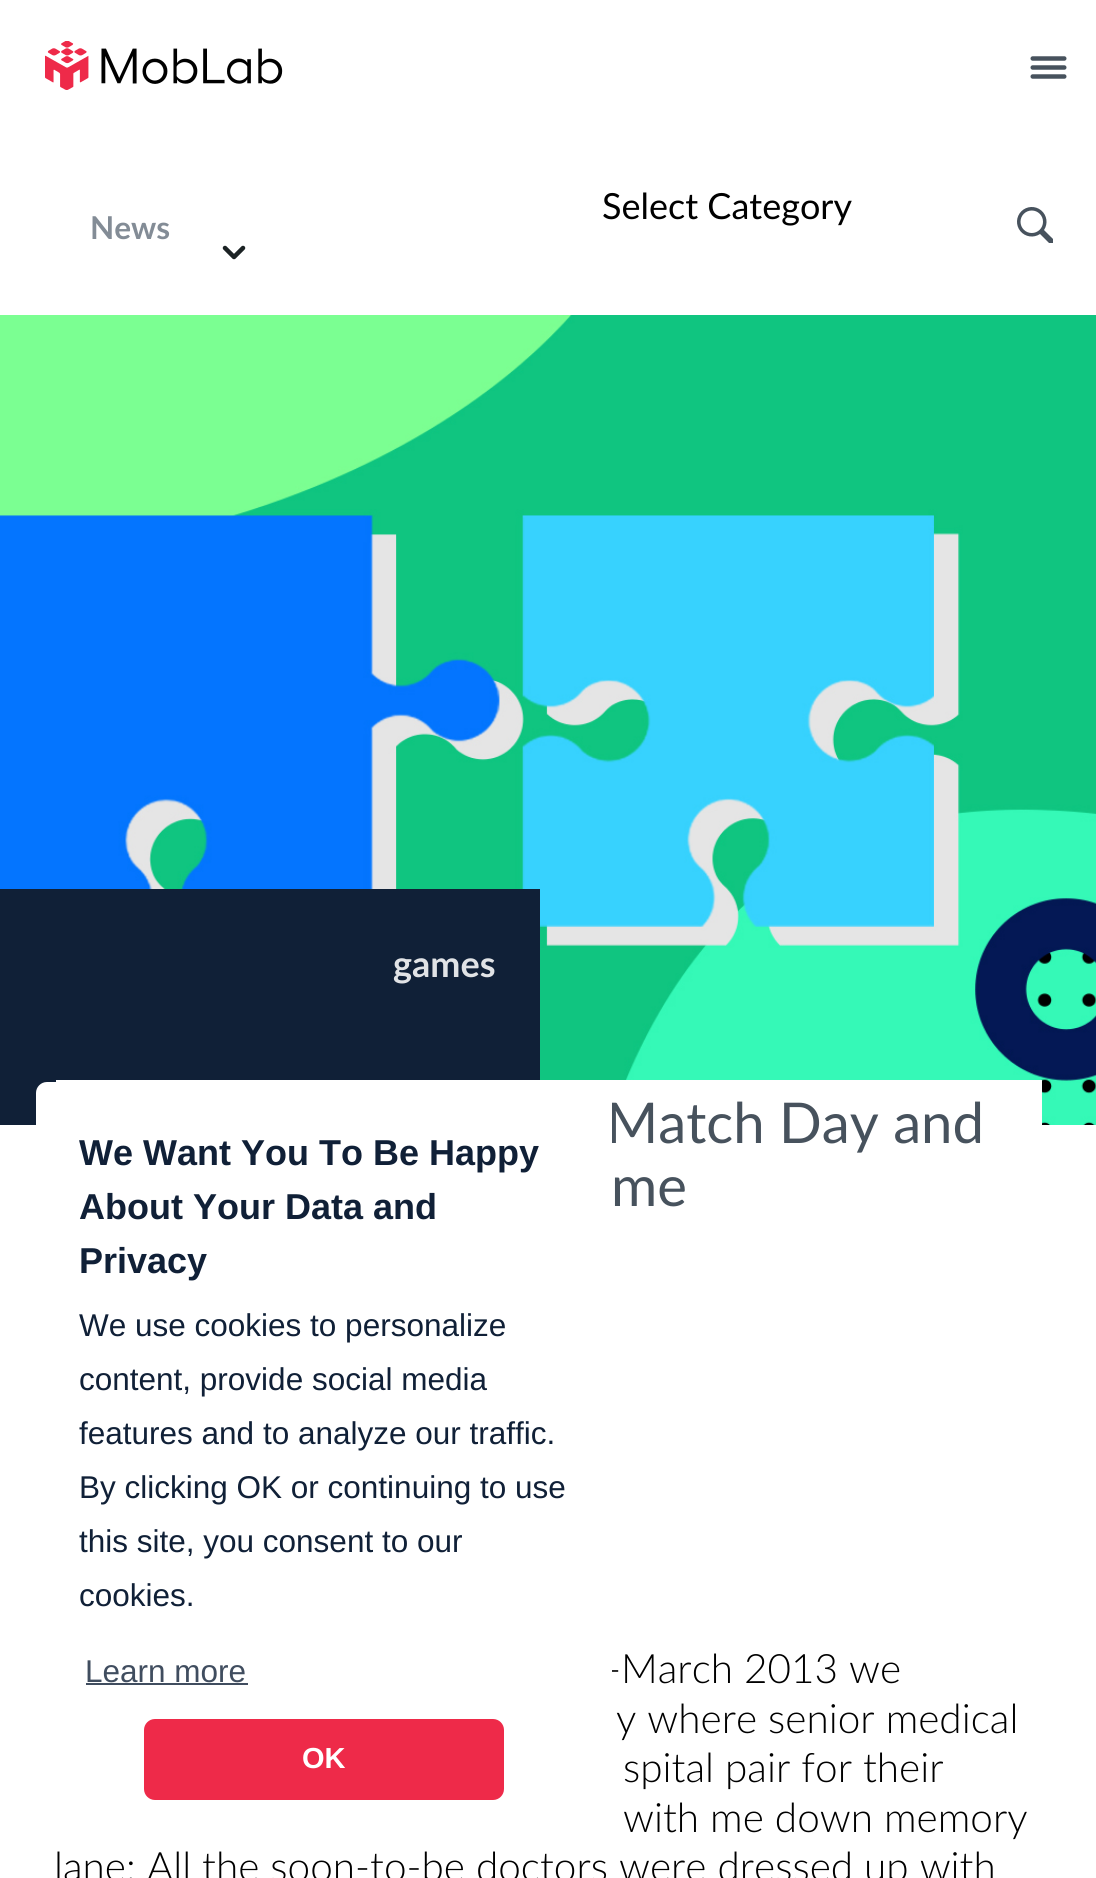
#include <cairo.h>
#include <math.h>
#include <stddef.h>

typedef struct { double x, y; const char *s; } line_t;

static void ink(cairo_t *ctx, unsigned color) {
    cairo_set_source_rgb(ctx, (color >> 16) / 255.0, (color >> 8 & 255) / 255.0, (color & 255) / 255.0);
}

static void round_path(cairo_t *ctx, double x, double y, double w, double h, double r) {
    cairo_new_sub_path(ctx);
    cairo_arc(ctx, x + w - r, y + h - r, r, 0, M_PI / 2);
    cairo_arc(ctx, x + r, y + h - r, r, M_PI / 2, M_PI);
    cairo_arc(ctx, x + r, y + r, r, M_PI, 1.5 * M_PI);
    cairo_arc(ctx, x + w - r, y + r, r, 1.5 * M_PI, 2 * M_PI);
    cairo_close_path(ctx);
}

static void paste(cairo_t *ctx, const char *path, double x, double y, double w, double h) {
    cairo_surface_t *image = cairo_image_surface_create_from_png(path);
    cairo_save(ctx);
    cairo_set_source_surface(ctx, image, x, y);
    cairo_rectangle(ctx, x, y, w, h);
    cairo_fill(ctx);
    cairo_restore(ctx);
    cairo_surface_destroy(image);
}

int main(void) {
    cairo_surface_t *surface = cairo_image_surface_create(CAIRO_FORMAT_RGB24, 1096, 1878);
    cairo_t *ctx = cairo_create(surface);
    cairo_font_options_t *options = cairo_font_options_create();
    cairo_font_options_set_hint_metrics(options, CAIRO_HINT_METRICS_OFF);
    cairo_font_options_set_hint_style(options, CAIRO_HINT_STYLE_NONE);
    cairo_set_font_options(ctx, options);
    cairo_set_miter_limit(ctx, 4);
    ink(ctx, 0xFFFFFF);
    cairo_paint(ctx);
    paste(ctx, "media/1.png", 45, 41, 238, 49);
    paste(ctx, "media/2.png", 1030, 56, 37, 23);
    cairo_select_font_face(ctx, "Lato", CAIRO_FONT_SLANT_NORMAL, CAIRO_FONT_WEIGHT_BOLD);
    cairo_set_font_size(ctx, 31.5);
    ink(ctx, 0x838C96);
    cairo_move_to(ctx, 90, 239);
    cairo_show_text(ctx, "News");
    cairo_select_font_face(ctx, "Lato", CAIRO_FONT_SLANT_NORMAL, CAIRO_FONT_WEIGHT_NORMAL);
    cairo_set_font_size(ctx, 36);
    ink(ctx, 0x000000);
    cairo_move_to(ctx, 602, 219);
    cairo_show_text(ctx, "Select Category");
    cairo_new_path(ctx);
    cairo_move_to(ctx, 225, 248);
    cairo_line_to(ctx, 234, 257);
    cairo_line_to(ctx, 243, 248);
    ink(ctx, 0x1B2224);
    cairo_set_line_width(ctx, 4.5);
    cairo_set_line_cap(ctx, CAIRO_LINE_CAP_ROUND);
    cairo_set_line_join(ctx, CAIRO_LINE_JOIN_ROUND);
    cairo_stroke(ctx);
    paste(ctx, "media/3.png", 1017, 207, 36, 36);
    paste(ctx, "media/4.png", 0, 315, 1096, 810);
    ink(ctx, 0x102037);
    cairo_rectangle(ctx, 0, 889, 540, 236);
    cairo_fill(ctx);
    cairo_select_font_face(ctx, "Lato", CAIRO_FONT_SLANT_NORMAL, CAIRO_FONT_WEIGHT_BOLD);
    ink(ctx, 0xE1E3E6);
    cairo_move_to(ctx, 393, 977);
    cairo_show_text(ctx, "games");
    ink(ctx, 0xFFFFFF);
    cairo_rectangle(ctx, 56, 1080, 986, 45);
    cairo_fill(ctx);
    cairo_select_font_face(ctx, "Lato", CAIRO_FONT_SLANT_NORMAL, CAIRO_FONT_WEIGHT_NORMAL);
    cairo_set_font_size(ctx, 56.25);
    ink(ctx, 0x47525D);
    cairo_move_to(ctx, 606, 1143);
    cairo_show_text(ctx, "Match Day and");
    cairo_move_to(ctx, 611, 1206);
    cairo_show_text(ctx, "me");
    cairo_select_font_face(ctx, "Lato Light", CAIRO_FONT_SLANT_NORMAL, CAIRO_FONT_WEIGHT_NORMAL);
    cairo_set_font_size(ctx, 40.5);
    ink(ctx, 0x000000);
    {
        static const line_t items[] = {
            {606, 1683, "-March 2013 we"},
            {616, 1733, "y where senior medical"},
            {623, 1782, "spital pair for their"},
            {623, 1832, "with me down memory"},
            {54, 1881, "lane: All the soon-to-be doctors were dressed up with"},
        };
        for (size_t i = 0; i < sizeof items / sizeof *items; i++) {
            cairo_move_to(ctx, items[i].x, items[i].y);
            cairo_show_text(ctx, items[i].s);
        }
    }
    ink(ctx, 0xFFFFFF);
    round_path(ctx, 36, 1082, 576, 761, 11);
    cairo_fill(ctx);
    cairo_select_font_face(ctx, "Liberation Sans", CAIRO_FONT_SLANT_NORMAL, CAIRO_FONT_WEIGHT_BOLD);
    cairo_set_font_size(ctx, 36);
    ink(ctx, 0x102037);
    {
        static const line_t items[] = {
            {79, 1165, "We Want You To Be Happy"},
            {79, 1219, "About Your Data and"},
            {79, 1273, "Privacy"},
        };
        for (size_t i = 0; i < sizeof items / sizeof *items; i++) {
            cairo_move_to(ctx, items[i].x, items[i].y);
            cairo_show_text(ctx, items[i].s);
        }
    }
    cairo_select_font_face(ctx, "Liberation Sans", CAIRO_FONT_SLANT_NORMAL, CAIRO_FONT_WEIGHT_NORMAL);
    cairo_set_font_size(ctx, 31.5);
    {
        static const line_t items[] = {
            {79, 1336, "We use cookies to personalize"},
            {79, 1390, "content, provide social media"},
            {79, 1444, "features and to analyze our traffic."},
            {79, 1498, "By clicking OK or continuing to use"},
            {79, 1552, "this site, you consent to our"},
            {79, 1606, "cookies."},
        };
        for (size_t i = 0; i < sizeof items / sizeof *items; i++) {
            cairo_move_to(ctx, items[i].x, items[i].y);
            cairo_show_text(ctx, items[i].s);
        }
    }
    ink(ctx, 0x404D5F);
    cairo_move_to(ctx, 85, 1682);
    cairo_show_text(ctx, "Learn more");
    cairo_rectangle(ctx, 86, 1683, 162, 2);
    cairo_fill(ctx);
    ink(ctx, 0xEE2A49);
    round_path(ctx, 144, 1719, 360, 81, 11);
    cairo_fill(ctx);
    cairo_select_font_face(ctx, "Liberation Sans", CAIRO_FONT_SLANT_NORMAL, CAIRO_FONT_WEIGHT_BOLD);
    cairo_set_font_size(ctx, 29);
    ink(ctx, 0xFFFFFF);
    cairo_move_to(ctx, 302, 1768);
    cairo_show_text(ctx, "OK");
    cairo_surface_write_to_png(surface, "image.png");
    cairo_font_options_destroy(options);
    cairo_destroy(ctx);
    cairo_surface_destroy(surface);
    return 0;
}
